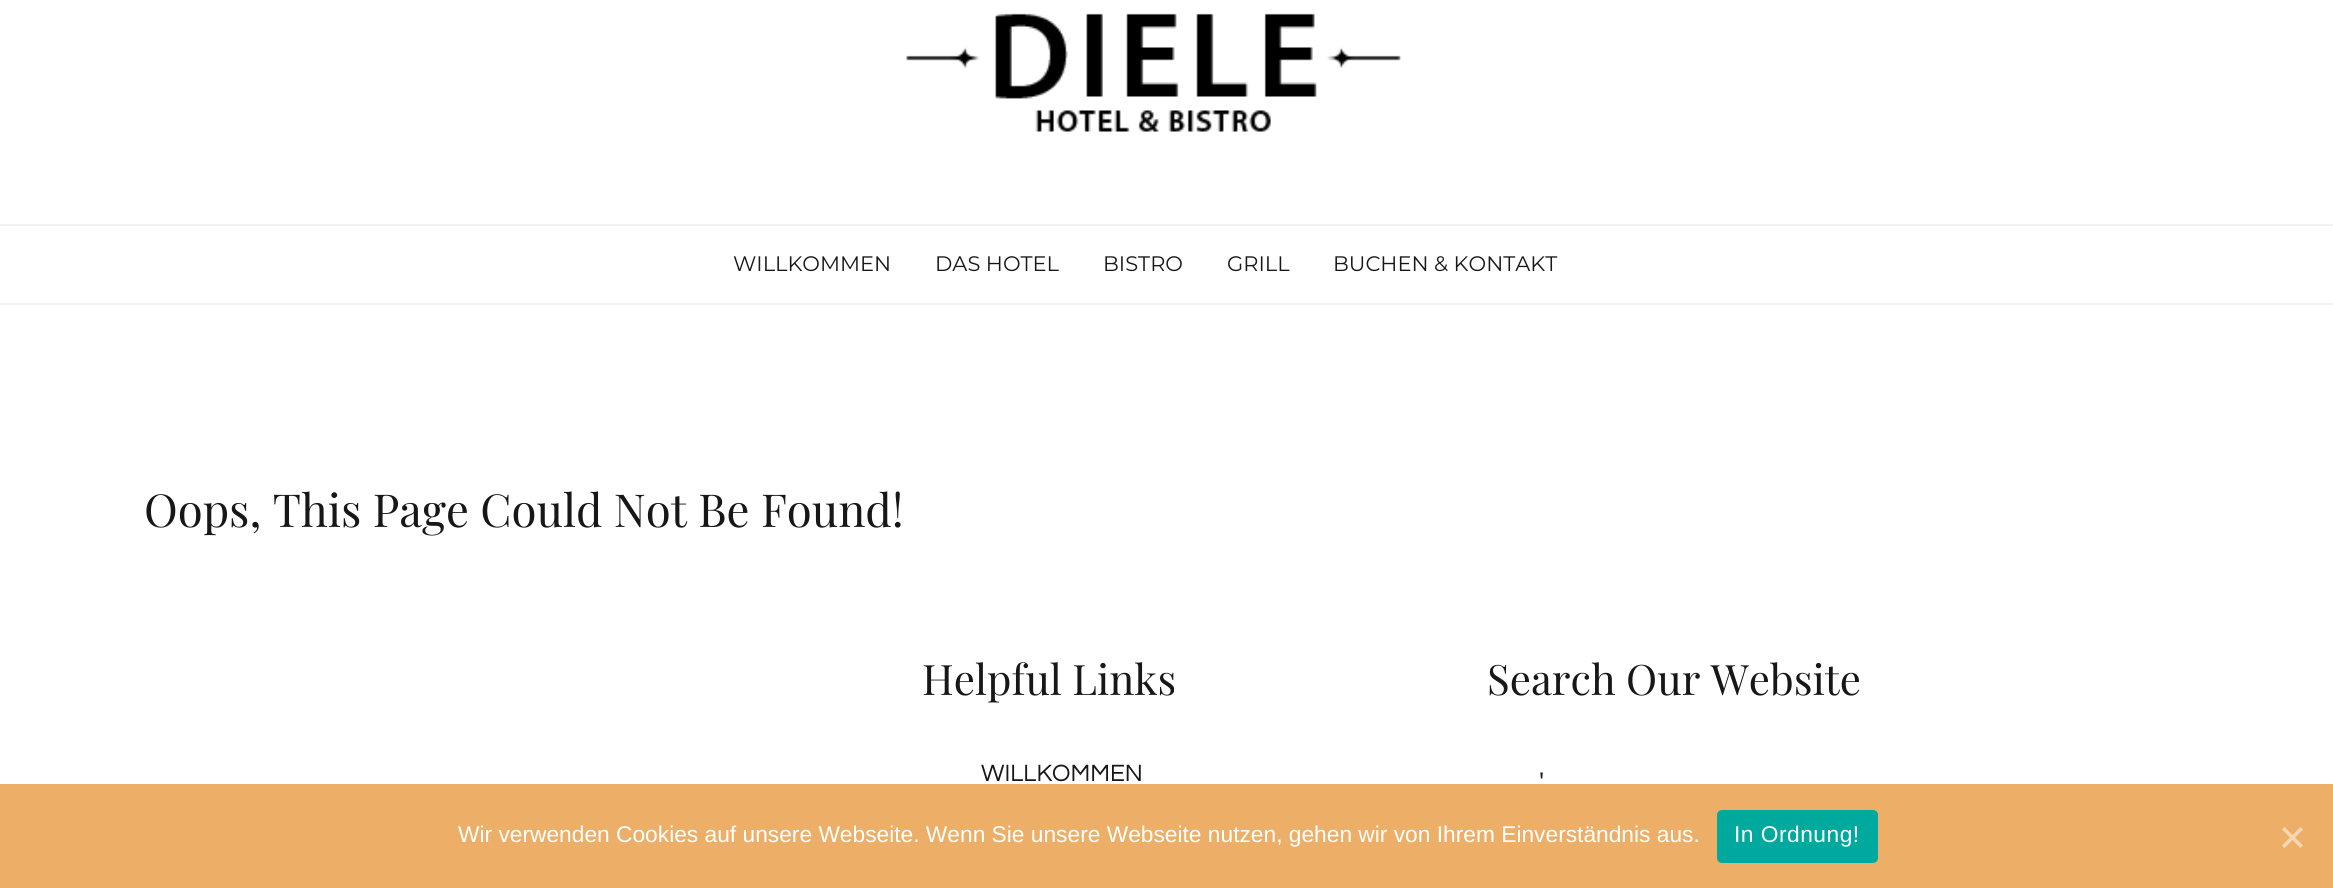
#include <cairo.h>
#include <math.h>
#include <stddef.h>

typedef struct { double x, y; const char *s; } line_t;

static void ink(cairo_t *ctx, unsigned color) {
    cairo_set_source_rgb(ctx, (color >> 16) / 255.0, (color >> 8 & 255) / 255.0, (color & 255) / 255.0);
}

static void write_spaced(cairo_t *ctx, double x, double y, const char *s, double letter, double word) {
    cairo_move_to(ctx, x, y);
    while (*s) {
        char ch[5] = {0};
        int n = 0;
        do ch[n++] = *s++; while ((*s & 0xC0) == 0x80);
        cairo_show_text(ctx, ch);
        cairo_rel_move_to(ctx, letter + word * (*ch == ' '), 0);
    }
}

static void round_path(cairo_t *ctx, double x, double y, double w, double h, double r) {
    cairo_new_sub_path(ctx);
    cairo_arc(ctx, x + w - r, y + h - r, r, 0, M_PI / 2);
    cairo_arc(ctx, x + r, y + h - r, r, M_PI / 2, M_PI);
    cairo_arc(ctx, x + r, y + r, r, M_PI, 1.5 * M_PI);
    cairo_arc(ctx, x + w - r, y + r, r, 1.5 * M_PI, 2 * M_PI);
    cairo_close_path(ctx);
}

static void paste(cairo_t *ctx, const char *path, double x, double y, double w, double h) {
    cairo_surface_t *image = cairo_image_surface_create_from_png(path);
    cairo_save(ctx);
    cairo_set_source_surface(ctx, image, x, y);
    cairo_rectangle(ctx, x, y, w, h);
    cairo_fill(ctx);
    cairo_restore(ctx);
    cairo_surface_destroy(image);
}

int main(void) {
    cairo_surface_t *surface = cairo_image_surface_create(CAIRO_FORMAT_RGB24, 2333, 888);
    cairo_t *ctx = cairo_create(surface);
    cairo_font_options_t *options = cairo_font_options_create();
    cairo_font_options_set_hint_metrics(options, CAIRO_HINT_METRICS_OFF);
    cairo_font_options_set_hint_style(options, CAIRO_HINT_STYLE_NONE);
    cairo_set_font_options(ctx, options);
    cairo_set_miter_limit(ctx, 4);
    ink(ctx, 0xFFFFFF);
    cairo_paint(ctx);
    ink(ctx, 0xF2F2F2);
    cairo_rectangle(ctx, 0, 224, 2333, 2);
    cairo_fill(ctx);
    paste(ctx, "media/1.png", 906, 13, 495, 119);
    cairo_rectangle(ctx, 0, 303, 2333, 2);
    cairo_fill(ctx);
    cairo_select_font_face(ctx, "Montserrat", CAIRO_FONT_SLANT_NORMAL, CAIRO_FONT_WEIGHT_NORMAL);
    cairo_set_font_size(ctx, 21);
    ink(ctx, 0x171717);
    {
        static const line_t items[] = {
            {733, 271, "WILLKOMMEN"},
            {935, 271, "DAS HOTEL"},
            {1103, 271, "BISTRO"},
            {1227, 271, "GRILL"},
            {1333, 271, "BUCHEN & KONTAKT"},
        };
        for (size_t i = 0; i < sizeof items / sizeof *items; i++) {
            cairo_move_to(ctx, items[i].x, items[i].y);
            cairo_show_text(ctx, items[i].s);
        }
    }
    cairo_select_font_face(ctx, "Playfair Display", CAIRO_FONT_SLANT_NORMAL, CAIRO_FONT_WEIGHT_NORMAL);
    cairo_set_font_size(ctx, 45.5);
    cairo_move_to(ctx, 144, 527);
    cairo_show_text(ctx, "Oops, This Page Could Not Be Found!");
    cairo_set_font_size(ctx, 42);
    cairo_move_to(ctx, 922, 695);
    cairo_show_text(ctx, "Helpful Links");
    cairo_select_font_face(ctx, "Questrial", CAIRO_FONT_SLANT_NORMAL, CAIRO_FONT_WEIGHT_NORMAL);
    cairo_set_font_size(ctx, 24.5);
    cairo_move_to(ctx, 981, 781);
    cairo_show_text(ctx, "WILLKOMMEN");
    cairo_select_font_face(ctx, "Playfair Display", CAIRO_FONT_SLANT_NORMAL, CAIRO_FONT_WEIGHT_NORMAL);
    cairo_set_font_size(ctx, 42);
    cairo_move_to(ctx, 1487, 695);
    cairo_show_text(ctx, "Search Our Website");
    cairo_select_font_face(ctx, "Questrial", CAIRO_FONT_SLANT_NORMAL, CAIRO_FONT_WEIGHT_NORMAL);
    cairo_set_font_size(ctx, 28);
    ink(ctx, 0x222222);
    cairo_move_to(ctx, 1539, 791);
    cairo_show_text(ctx, "'");
    ink(ctx, 0xEDAF68);
    cairo_rectangle(ctx, 0, 784, 2333, 104);
    cairo_fill(ctx);
    cairo_select_font_face(ctx, "Liberation Sans", CAIRO_FONT_SLANT_NORMAL, CAIRO_FONT_WEIGHT_NORMAL);
    cairo_set_font_size(ctx, 22.75);
    ink(ctx, 0xFFFFFF);
    cairo_move_to(ctx, 458, 842);
    cairo_show_text(ctx, "Wir verwenden Cookies auf unsere Webseite. Wenn Sie unsere Webseite nutzen, gehen wir von Ihrem Einverständnis aus.");
    ink(ctx, 0x00A99D);
    round_path(ctx, 1717, 810, 161, 53, 5);
    cairo_fill(ctx);
    ink(ctx, 0xFFFFFF);
    write_spaced(ctx, 1734, 842, "In Ordnung!", 0.5, 0);
    ink(ctx, 0xF6D7B4);
    cairo_new_path(ctx);
    cairo_move_to(ctx, 2300.5, 827);
    cairo_line_to(ctx, 2303, 829.5);
    cairo_line_to(ctx, 2284.5, 848);
    cairo_line_to(ctx, 2282, 845.5);
    cairo_close_path(ctx);
    cairo_fill(ctx);
    cairo_new_path(ctx);
    cairo_move_to(ctx, 2282, 829.5);
    cairo_line_to(ctx, 2284.5, 827);
    cairo_line_to(ctx, 2303, 845.5);
    cairo_line_to(ctx, 2300.5, 848);
    cairo_close_path(ctx);
    cairo_fill(ctx);
    cairo_surface_write_to_png(surface, "image.png");
    cairo_font_options_destroy(options);
    cairo_destroy(ctx);
    cairo_surface_destroy(surface);
    return 0;
}
